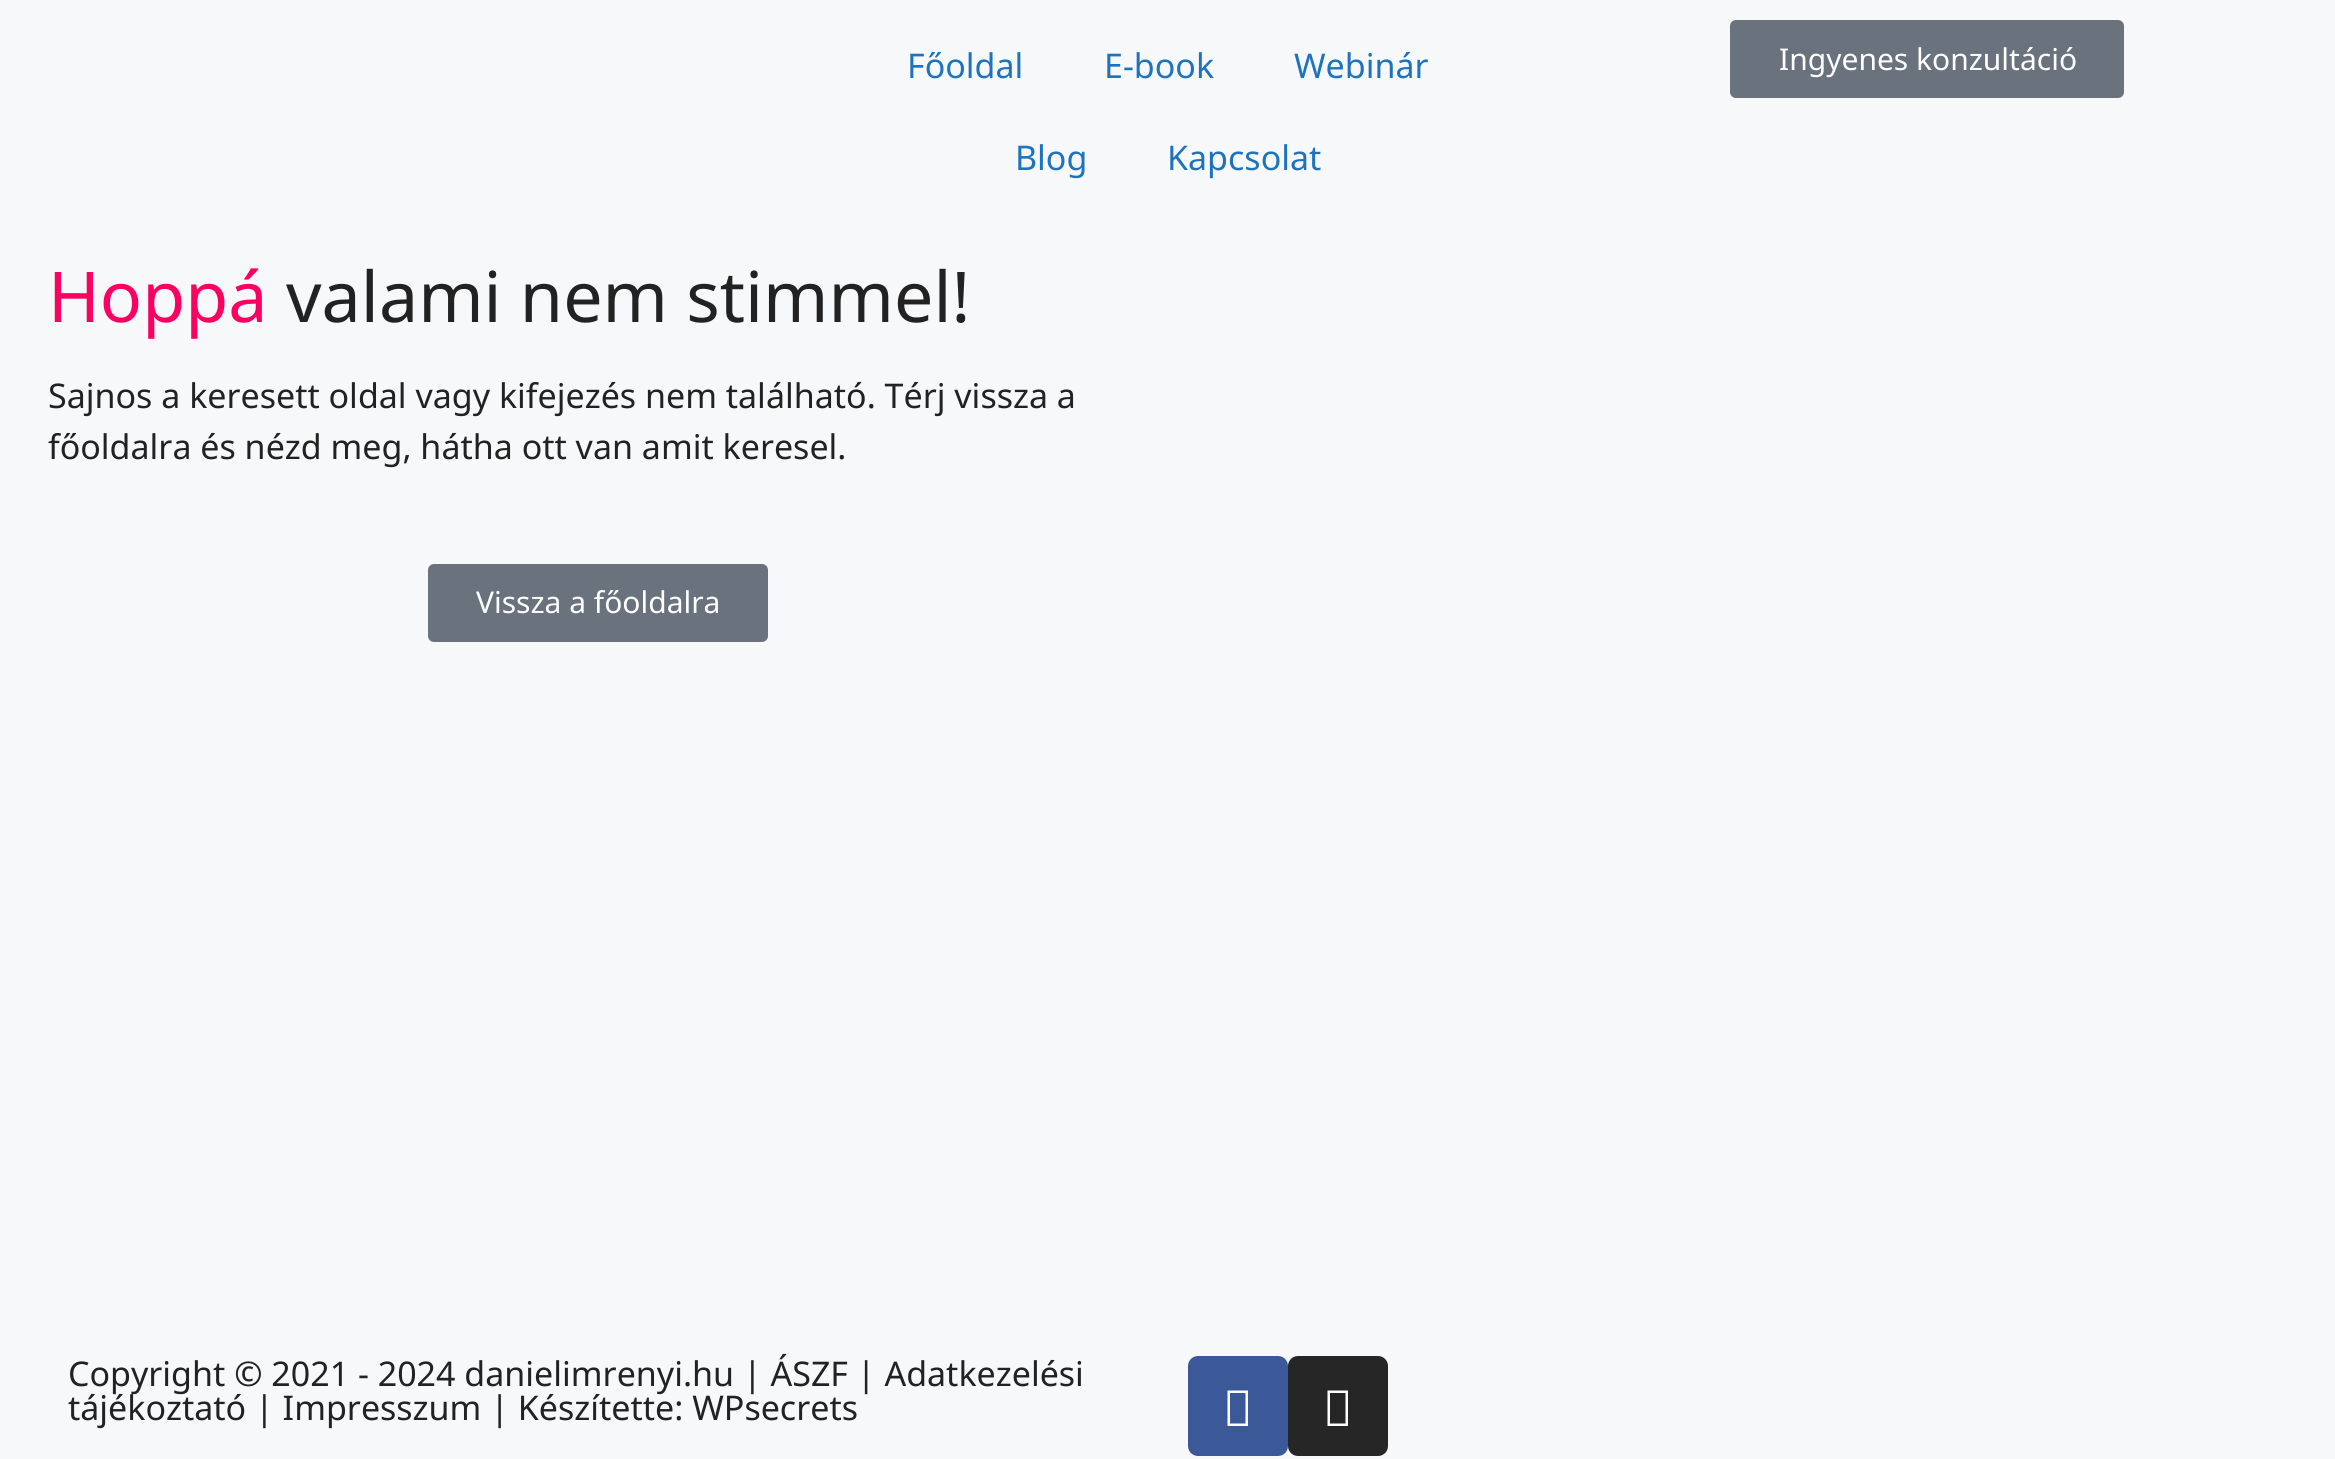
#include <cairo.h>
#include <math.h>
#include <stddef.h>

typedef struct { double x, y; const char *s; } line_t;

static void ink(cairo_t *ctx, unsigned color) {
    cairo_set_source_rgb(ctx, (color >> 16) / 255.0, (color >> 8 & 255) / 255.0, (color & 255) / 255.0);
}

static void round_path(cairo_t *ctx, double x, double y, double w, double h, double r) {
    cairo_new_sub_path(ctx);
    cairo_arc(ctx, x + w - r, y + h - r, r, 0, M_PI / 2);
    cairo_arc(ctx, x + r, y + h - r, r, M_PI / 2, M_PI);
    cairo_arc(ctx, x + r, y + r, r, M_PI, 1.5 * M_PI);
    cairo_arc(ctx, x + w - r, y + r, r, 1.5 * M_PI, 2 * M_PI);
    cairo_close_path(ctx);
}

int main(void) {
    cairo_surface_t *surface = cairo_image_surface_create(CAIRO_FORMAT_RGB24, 2335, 1459);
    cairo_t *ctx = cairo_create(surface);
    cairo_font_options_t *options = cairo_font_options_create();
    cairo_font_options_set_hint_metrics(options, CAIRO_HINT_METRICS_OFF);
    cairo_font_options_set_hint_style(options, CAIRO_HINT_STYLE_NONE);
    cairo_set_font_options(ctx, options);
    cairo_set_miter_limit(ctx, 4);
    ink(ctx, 0xF7F8F9);
    cairo_paint(ctx);
    cairo_select_font_face(ctx, "Noto Sans", CAIRO_FONT_SLANT_NORMAL, CAIRO_FONT_WEIGHT_NORMAL);
    cairo_set_font_size(ctx, 34);
    ink(ctx, 0x1E73BE);
    {
        static const line_t items[] = {
            {907, 78, "Főoldal"},
            {1104, 78, "E-book"},
            {1294, 78, "Webinár"},
            {1015, 170, "Blog"},
            {1167, 170, "Kapcsolat"},
        };
        for (size_t i = 0; i < sizeof items / sizeof *items; i++) {
            cairo_move_to(ctx, items[i].x, items[i].y);
            cairo_show_text(ctx, items[i].s);
        }
    }
    ink(ctx, 0x69727D);
    round_path(ctx, 1730, 20, 394, 78, 6);
    cairo_fill(ctx);
    cairo_set_font_size(ctx, 30);
    ink(ctx, 0xFFFFFF);
    cairo_move_to(ctx, 1779, 70);
    cairo_show_text(ctx, "Ingyenes konzultáció");
    cairo_set_font_size(ctx, 70);
    ink(ctx, 0xFC0061);
    cairo_move_to(ctx, 48, 322);
    cairo_show_text(ctx, "Hoppá");
    ink(ctx, 0x222222);
    cairo_move_to(ctx, 286, 322);
    cairo_show_text(ctx, "valami nem stimmel!");
    cairo_set_font_size(ctx, 34);
    cairo_move_to(ctx, 48, 408);
    cairo_show_text(ctx, "Sajnos a keresett oldal vagy kifejezés nem található. Térj vissza a");
    cairo_move_to(ctx, 48, 459);
    cairo_show_text(ctx, "főoldalra és nézd meg, hátha ott van amit keresel.");
    ink(ctx, 0x69727D);
    round_path(ctx, 428, 564, 340, 78, 6);
    cairo_fill(ctx);
    cairo_set_font_size(ctx, 30);
    ink(ctx, 0xFFFFFF);
    cairo_move_to(ctx, 476, 613);
    cairo_show_text(ctx, "Vissza a főoldalra");
    cairo_set_font_size(ctx, 34);
    ink(ctx, 0x222222);
    cairo_move_to(ctx, 68, 1386);
    cairo_show_text(ctx, "Copyright © 2021 - 2024 danielimrenyi.hu | ÁSZF | Adatkezelési");
    cairo_move_to(ctx, 68, 1420);
    cairo_show_text(ctx, "tájékoztató | Impresszum | Készítette: WPsecrets");
    ink(ctx, 0x3B5998);
    round_path(ctx, 1188, 1356, 100, 100, 10);
    cairo_fill(ctx);
    ink(ctx, 0xFFFFFF);
    cairo_new_path(ctx);
    cairo_move_to(ctx, 1227.5, 1426);
    cairo_line_to(ctx, 1227.5, 1390.5);
    cairo_line_to(ctx, 1248, 1390.5);
    cairo_line_to(ctx, 1248, 1426);
    cairo_close_path(ctx);
    cairo_move_to(ctx, 1230, 1423.5);
    cairo_line_to(ctx, 1245.5, 1423.5);
    cairo_line_to(ctx, 1245.5, 1393);
    cairo_line_to(ctx, 1230, 1393);
    cairo_close_path(ctx);
    cairo_fill(ctx);
    ink(ctx, 0x262626);
    round_path(ctx, 1288, 1356, 100, 100, 10);
    cairo_fill(ctx);
    ink(ctx, 0xFFFFFF);
    cairo_new_path(ctx);
    cairo_move_to(ctx, 1327.5, 1426);
    cairo_line_to(ctx, 1327.5, 1390.5);
    cairo_line_to(ctx, 1348, 1390.5);
    cairo_line_to(ctx, 1348, 1426);
    cairo_close_path(ctx);
    cairo_move_to(ctx, 1330, 1423.5);
    cairo_line_to(ctx, 1345.5, 1423.5);
    cairo_line_to(ctx, 1345.5, 1393);
    cairo_line_to(ctx, 1330, 1393);
    cairo_close_path(ctx);
    cairo_fill(ctx);
    cairo_surface_write_to_png(surface, "image.png");
    cairo_font_options_destroy(options);
    cairo_destroy(ctx);
    cairo_surface_destroy(surface);
    return 0;
}
